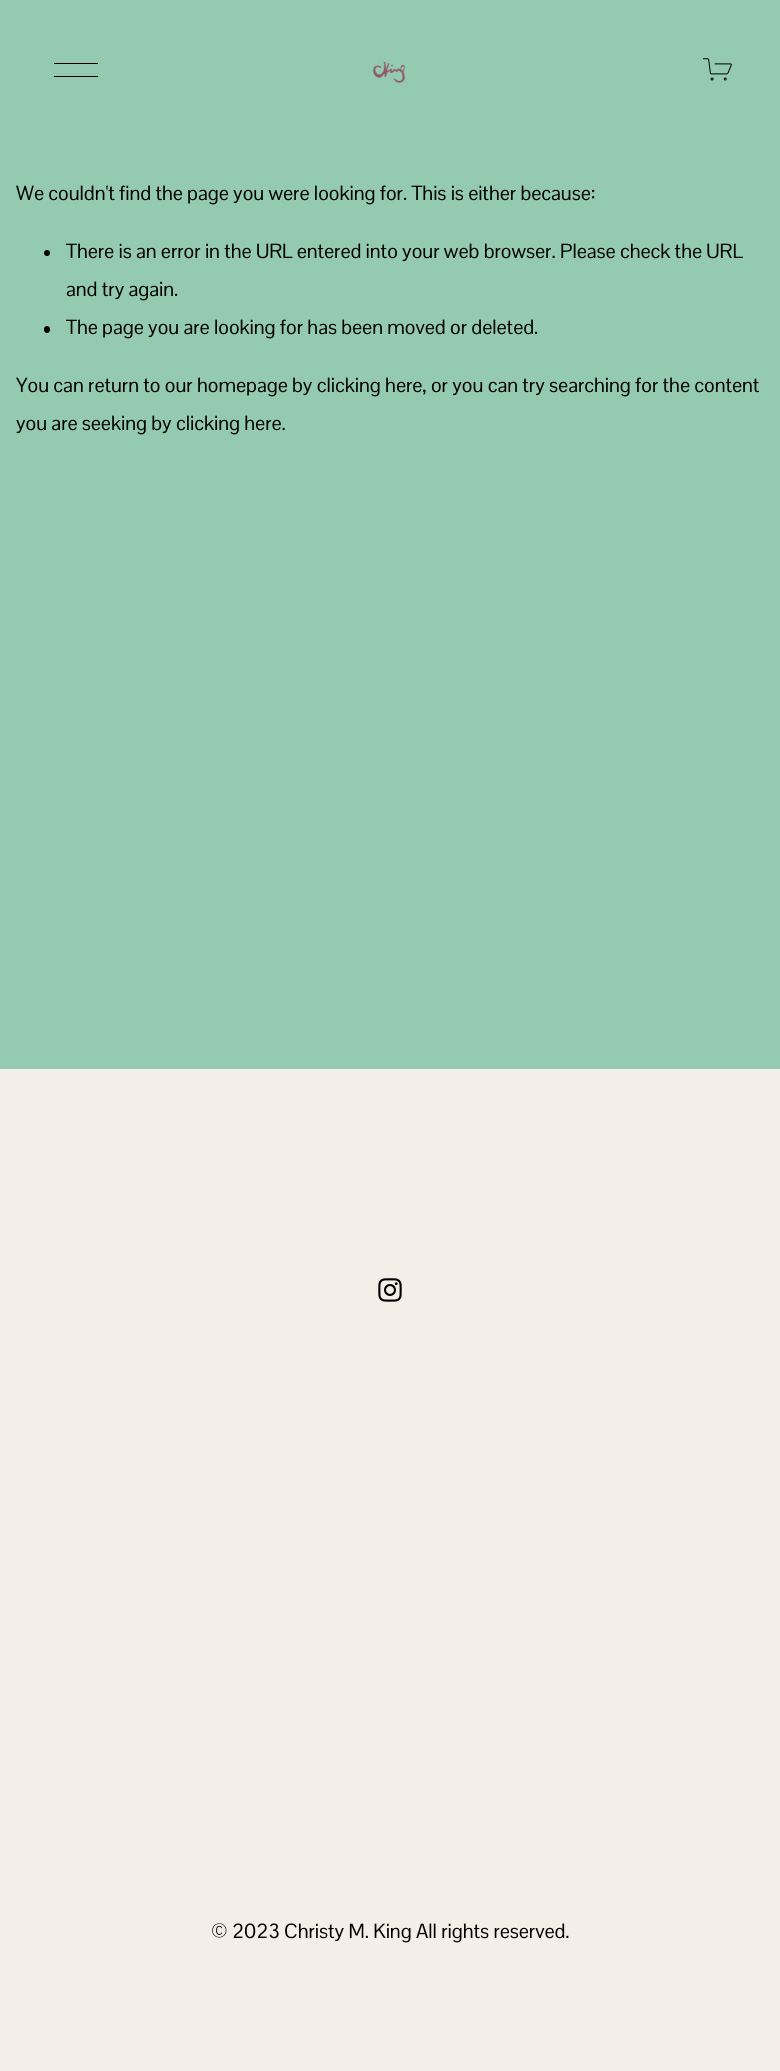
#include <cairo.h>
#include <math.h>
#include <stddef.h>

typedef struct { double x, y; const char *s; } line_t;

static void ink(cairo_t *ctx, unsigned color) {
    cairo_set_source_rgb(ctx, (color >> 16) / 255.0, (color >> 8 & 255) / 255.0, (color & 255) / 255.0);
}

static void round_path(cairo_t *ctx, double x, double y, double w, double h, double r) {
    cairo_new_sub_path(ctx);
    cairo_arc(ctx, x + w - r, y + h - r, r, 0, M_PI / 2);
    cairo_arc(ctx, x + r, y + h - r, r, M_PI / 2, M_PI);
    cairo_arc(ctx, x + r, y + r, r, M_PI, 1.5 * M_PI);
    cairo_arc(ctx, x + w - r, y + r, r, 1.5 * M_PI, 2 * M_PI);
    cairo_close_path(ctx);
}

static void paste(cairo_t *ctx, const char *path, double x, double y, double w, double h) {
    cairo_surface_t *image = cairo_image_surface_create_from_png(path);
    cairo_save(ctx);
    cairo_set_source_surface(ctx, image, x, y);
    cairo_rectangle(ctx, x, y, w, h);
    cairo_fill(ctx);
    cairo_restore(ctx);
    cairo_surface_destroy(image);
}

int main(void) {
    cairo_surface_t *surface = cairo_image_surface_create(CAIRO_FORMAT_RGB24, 780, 2071);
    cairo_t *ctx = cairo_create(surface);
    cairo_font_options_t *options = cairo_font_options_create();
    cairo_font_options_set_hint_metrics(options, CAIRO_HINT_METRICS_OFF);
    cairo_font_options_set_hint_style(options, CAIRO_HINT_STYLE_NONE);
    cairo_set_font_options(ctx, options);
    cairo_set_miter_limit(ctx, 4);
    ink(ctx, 0x94CAB0);
    cairo_paint(ctx);
    ink(ctx, 0x000000);
    cairo_rectangle(ctx, 54, 63, 44, 1);
    cairo_fill(ctx);
    cairo_rectangle(ctx, 54, 76, 44, 1);
    cairo_fill(ctx);
    paste(ctx, "media/1.png", 373, 61, 33, 22);
    paste(ctx, "media/2.png", 703, 58, 29, 23);
    cairo_select_font_face(ctx, "Pontano Sans", CAIRO_FONT_SLANT_NORMAL, CAIRO_FONT_WEIGHT_NORMAL);
    cairo_set_font_size(ctx, 20);
    cairo_move_to(ctx, 16, 200);
    cairo_show_text(ctx, "We couldn't find the page you were looking for. This is either because:");
    cairo_new_path(ctx);
    cairo_arc(ctx, 47, 253, 3, 0, 2 * M_PI);
    cairo_fill(ctx);
    cairo_move_to(ctx, 66, 258);
    cairo_show_text(ctx, "There is an error in the URL entered into your web browser. Please check the URL");
    cairo_move_to(ctx, 66, 296);
    cairo_show_text(ctx, "and try again.");
    round_path(ctx, 44, 326, 6, 7, 3);
    cairo_fill(ctx);
    {
        static const line_t items[] = {
            {66, 334, "The page you are looking for has been moved or deleted."},
            {16, 392, "You can return to our homepage by clicking here, or you can try searching for the content"},
            {16, 430, "you are seeking by clicking here."},
        };
        for (size_t i = 0; i < sizeof items / sizeof *items; i++) {
            cairo_move_to(ctx, items[i].x, items[i].y);
            cairo_show_text(ctx, items[i].s);
        }
    }
    ink(ctx, 0xF4EEE8);
    cairo_rectangle(ctx, 0, 1069, 780, 1002);
    cairo_fill(ctx);
    paste(ctx, "media/3.png", 378, 1278, 24, 24);
    ink(ctx, 0x000000);
    cairo_move_to(ctx, 211, 1938);
    cairo_show_text(ctx, "© 2023 Christy M. King All rights reserved.");
    cairo_surface_write_to_png(surface, "image.png");
    cairo_font_options_destroy(options);
    cairo_destroy(ctx);
    cairo_surface_destroy(surface);
    return 0;
}
